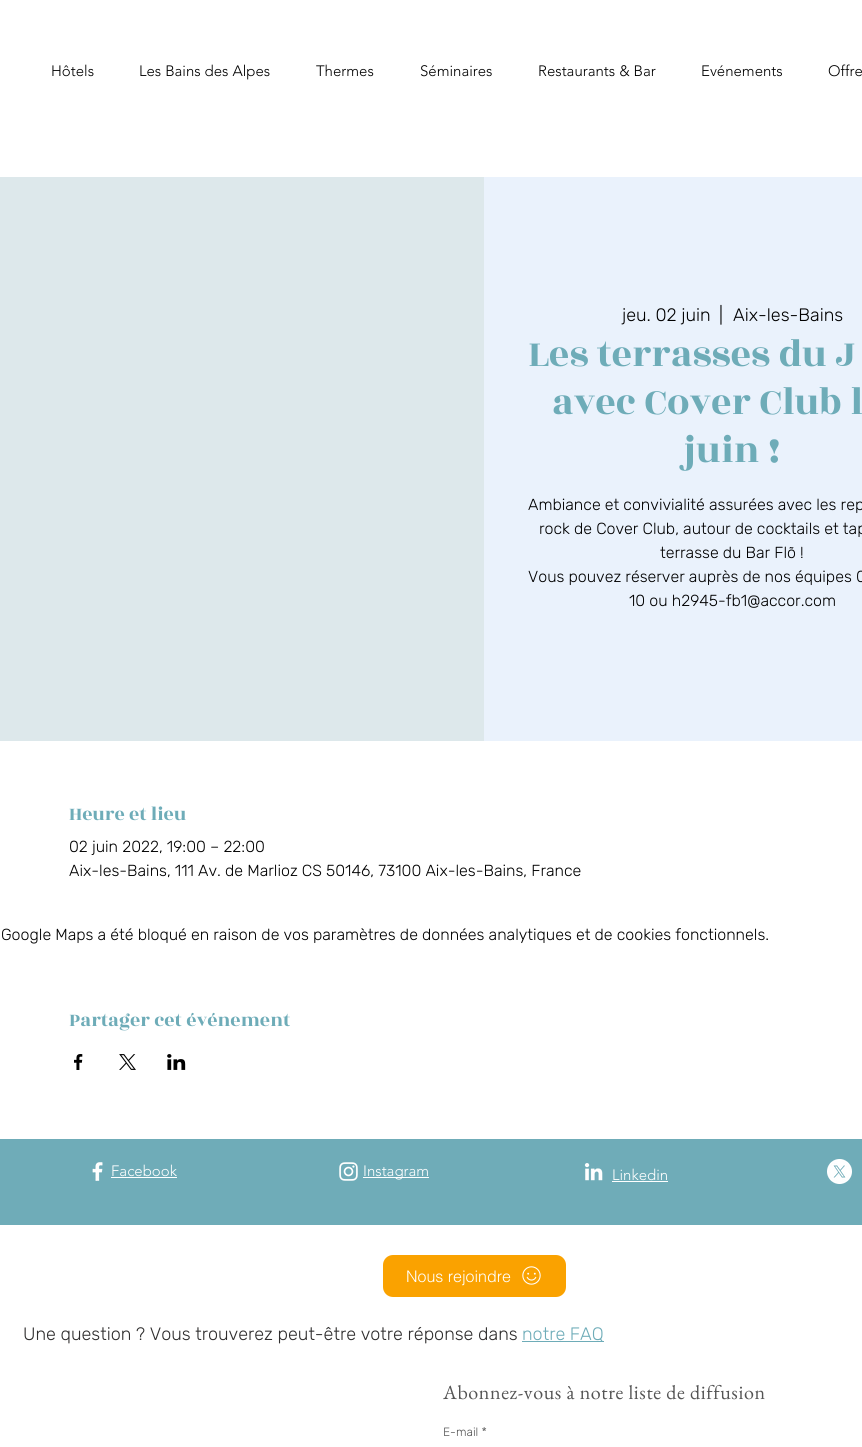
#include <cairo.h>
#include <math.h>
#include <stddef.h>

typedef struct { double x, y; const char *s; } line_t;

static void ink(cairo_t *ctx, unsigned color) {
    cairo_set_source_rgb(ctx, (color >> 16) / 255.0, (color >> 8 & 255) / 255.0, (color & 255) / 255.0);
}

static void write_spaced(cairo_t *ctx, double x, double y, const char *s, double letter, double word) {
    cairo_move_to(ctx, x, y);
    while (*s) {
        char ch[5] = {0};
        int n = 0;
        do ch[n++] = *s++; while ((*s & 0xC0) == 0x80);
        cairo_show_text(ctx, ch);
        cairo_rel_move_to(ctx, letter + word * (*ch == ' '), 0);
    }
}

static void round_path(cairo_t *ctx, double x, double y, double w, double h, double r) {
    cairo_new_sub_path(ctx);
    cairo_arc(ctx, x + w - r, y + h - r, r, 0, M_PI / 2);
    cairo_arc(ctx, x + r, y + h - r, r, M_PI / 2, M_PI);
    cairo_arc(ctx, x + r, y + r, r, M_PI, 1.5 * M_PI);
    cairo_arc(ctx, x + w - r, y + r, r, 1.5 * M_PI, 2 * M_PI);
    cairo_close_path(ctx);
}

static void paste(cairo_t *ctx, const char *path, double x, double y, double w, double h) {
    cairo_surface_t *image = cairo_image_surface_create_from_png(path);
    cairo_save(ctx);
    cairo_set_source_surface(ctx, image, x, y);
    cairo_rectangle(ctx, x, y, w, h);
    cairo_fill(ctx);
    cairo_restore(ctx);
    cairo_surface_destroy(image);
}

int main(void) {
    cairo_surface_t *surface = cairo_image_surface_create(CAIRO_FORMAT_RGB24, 862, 1447);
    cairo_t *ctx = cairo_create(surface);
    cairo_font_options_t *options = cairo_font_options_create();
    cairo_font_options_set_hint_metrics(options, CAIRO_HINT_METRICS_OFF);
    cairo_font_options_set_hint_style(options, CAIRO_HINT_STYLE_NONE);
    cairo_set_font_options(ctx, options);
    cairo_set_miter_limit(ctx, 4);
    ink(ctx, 0xFFFFFF);
    cairo_paint(ctx);
    cairo_select_font_face(ctx, "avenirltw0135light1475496 Light", CAIRO_FONT_SLANT_NORMAL, CAIRO_FONT_WEIGHT_NORMAL);
    cairo_set_font_size(ctx, 15);
    ink(ctx, 0x000000);
    {
        static const line_t items[] = {
            {51, 76, "Hôtels"},
            {139, 76, "Les Bains des Alpes"},
            {316, 76, "Thermes"},
            {420, 76, "Séminaires"},
            {538, 76, "Restaurants & Bar"},
            {701, 76, "Evénements"},
            {828, 76, "Offre"},
        };
        for (size_t i = 0; i < sizeof items / sizeof *items; i++) {
            cairo_move_to(ctx, items[i].x, items[i].y);
            cairo_show_text(ctx, items[i].s);
        }
    }
    ink(ctx, 0xDDE8EB);
    cairo_rectangle(ctx, 0, 177, 484, 564);
    cairo_fill(ctx);
    ink(ctx, 0xEAF2FC);
    cairo_rectangle(ctx, 484, 177, 378, 564);
    cairo_fill(ctx);
    cairo_select_font_face(ctx, "Rubik Light", CAIRO_FONT_SLANT_NORMAL, CAIRO_FONT_WEIGHT_NORMAL);
    cairo_set_font_size(ctx, 18);
    ink(ctx, 0x000000);
    {
        static const line_t items[] = {
            {622, 321, "jeu. 02 juin"},
            {719, 321, "|"},
            {733, 321, "Aix-les-Bains"},
        };
        for (size_t i = 0; i < sizeof items / sizeof *items; i++) {
            cairo_move_to(ctx, items[i].x, items[i].y);
            cairo_show_text(ctx, items[i].s);
        }
    }
    cairo_select_font_face(ctx, "Rozha One", CAIRO_FONT_SLANT_NORMAL, CAIRO_FONT_WEIGHT_NORMAL);
    cairo_set_font_size(ctx, 40);
    ink(ctx, 0x6EACB8);
    {
        static const line_t items[] = {
            {528, 366, "Les terrasses du J"},
            {552, 414, "avec Cover Club l"},
            {683, 462, "juin !"},
        };
        for (size_t i = 0; i < sizeof items / sizeof *items; i++) {
            cairo_move_to(ctx, items[i].x, items[i].y);
            cairo_show_text(ctx, items[i].s);
        }
    }
    cairo_select_font_face(ctx, "Rubik Light", CAIRO_FONT_SLANT_NORMAL, CAIRO_FONT_WEIGHT_NORMAL);
    cairo_set_font_size(ctx, 16);
    ink(ctx, 0x000000);
    {
        static const line_t items[] = {
            {528, 510, "Ambiance et convivialité assurées avec les rep"},
            {539, 534, "rock de Cover Club, autour de cocktails et tap"},
            {660, 558, "terrasse du Bar Flõ !"},
            {528, 582, "Vous pouvez réserver auprès de nos équipes 0"},
            {629, 606, "10 ou h2945-fb1@accor.com"},
        };
        for (size_t i = 0; i < sizeof items / sizeof *items; i++) {
            cairo_move_to(ctx, items[i].x, items[i].y);
            cairo_show_text(ctx, items[i].s);
        }
    }
    cairo_select_font_face(ctx, "Rozha One", CAIRO_FONT_SLANT_NORMAL, CAIRO_FONT_WEIGHT_NORMAL);
    cairo_set_font_size(ctx, 20);
    ink(ctx, 0x6EACB8);
    cairo_move_to(ctx, 69, 820);
    cairo_show_text(ctx, "Heure et lieu");
    cairo_select_font_face(ctx, "Rubik Light", CAIRO_FONT_SLANT_NORMAL, CAIRO_FONT_WEIGHT_NORMAL);
    cairo_set_font_size(ctx, 16);
    ink(ctx, 0x000000);
    {
        static const line_t items[] = {
            {69, 852, "02 juin 2022, 19:00 – 22:00"},
            {69, 876, "Aix-les-Bains, 111 Av. de Marlioz CS 50146, 73100 Aix-les-Bains, France"},
            {1, 940, "Google Maps a été bloqué en raison de vos paramètres de données analytiques et de cookies fonctionnels."},
        };
        for (size_t i = 0; i < sizeof items / sizeof *items; i++) {
            cairo_move_to(ctx, items[i].x, items[i].y);
            cairo_show_text(ctx, items[i].s);
        }
    }
    cairo_select_font_face(ctx, "Rozha One", CAIRO_FONT_SLANT_NORMAL, CAIRO_FONT_WEIGHT_NORMAL);
    cairo_set_font_size(ctx, 20);
    ink(ctx, 0x6EACB8);
    cairo_move_to(ctx, 69, 1026);
    cairo_show_text(ctx, "Partager cet événement");
    paste(ctx, "media/1.png", 74, 1054, 9, 16);
    paste(ctx, "media/2.png", 119, 1054, 17, 16);
    paste(ctx, "media/3.png", 167, 1054, 19, 16);
    ink(ctx, 0x6FACB8);
    cairo_rectangle(ctx, 0, 1139, 862, 86);
    cairo_fill(ctx);
    paste(ctx, "media/4.png", 92, 1162, 11, 19);
    cairo_select_font_face(ctx, "avenirltw0135light1475496 Light", CAIRO_FONT_SLANT_NORMAL, CAIRO_FONT_WEIGHT_NORMAL);
    cairo_set_font_size(ctx, 15);
    ink(ctx, 0xFFFFFF);
    cairo_move_to(ctx, 111, 1176);
    cairo_show_text(ctx, "Facebook");
    cairo_rectangle(ctx, 111, 1177, 66, 1);
    cairo_fill(ctx);
    paste(ctx, "media/5.png", 339, 1162, 19, 19);
    cairo_rectangle(ctx, 363, 1177, 66, 1);
    cairo_fill(ctx);
    cairo_move_to(ctx, 363, 1176);
    cairo_show_text(ctx, "Instagram");
    paste(ctx, "media/6.png", 584, 1163, 19, 18);
    cairo_move_to(ctx, 612, 1180);
    cairo_show_text(ctx, "Linkedin");
    cairo_rectangle(ctx, 612, 1181, 56, 1);
    cairo_fill(ctx);
    paste(ctx, "media/7.png", 827, 1159, 25, 25);
    ink(ctx, 0xFAA200);
    round_path(ctx, 383, 1255, 183, 42, 10);
    cairo_fill(ctx);
    cairo_select_font_face(ctx, "helvetica Light", CAIRO_FONT_SLANT_NORMAL, CAIRO_FONT_WEIGHT_NORMAL);
    cairo_set_font_size(ctx, 16);
    ink(ctx, 0xFFFFFF);
    cairo_move_to(ctx, 406, 1282);
    cairo_show_text(ctx, "Nous rejoindre");
    paste(ctx, "media/8.png", 522, 1266, 19, 19);
    cairo_select_font_face(ctx, "Rubik Light", CAIRO_FONT_SLANT_NORMAL, CAIRO_FONT_WEIGHT_NORMAL);
    cairo_set_font_size(ctx, 18);
    ink(ctx, 0x2F2E2E);
    cairo_move_to(ctx, 23, 1340);
    cairo_show_text(ctx, "Une question ? Vous trouverez peut-être votre réponse dans");
    ink(ctx, 0x6EACB8);
    cairo_rectangle(ctx, 522, 1341, 82, 1);
    cairo_fill(ctx);
    cairo_move_to(ctx, 522, 1340);
    cairo_show_text(ctx, "notre FAQ");
    cairo_select_font_face(ctx, "EB Garamond", CAIRO_FONT_SLANT_NORMAL, CAIRO_FONT_WEIGHT_NORMAL);
    cairo_set_font_size(ctx, 20);
    ink(ctx, 0x545454);
    write_spaced(ctx, 443, 1399, "Abonnez-vous à notre liste de diffusion", 0.6, 0);
    cairo_select_font_face(ctx, "Rubik Light", CAIRO_FONT_SLANT_NORMAL, CAIRO_FONT_WEIGHT_NORMAL);
    cairo_set_font_size(ctx, 12);
    cairo_move_to(ctx, 443, 1436);
    cairo_show_text(ctx, "E-mail *");
    cairo_surface_write_to_png(surface, "image.png");
    cairo_font_options_destroy(options);
    cairo_destroy(ctx);
    cairo_surface_destroy(surface);
    return 0;
}
